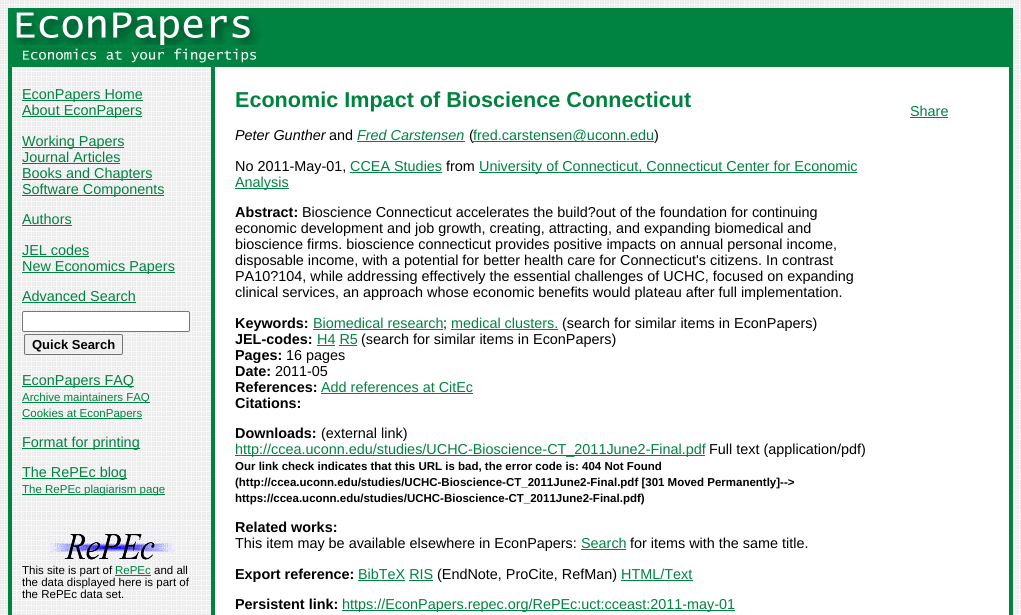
#include <cairo.h>
#include <math.h>
#include <stddef.h>

typedef struct { double x, y; const char *s; } line_t;

static void ink(cairo_t *ctx, unsigned color) {
    cairo_set_source_rgb(ctx, (color >> 16) / 255.0, (color >> 8 & 255) / 255.0, (color & 255) / 255.0);
}

static void round_path(cairo_t *ctx, double x, double y, double w, double h, double r) {
    cairo_new_sub_path(ctx);
    cairo_arc(ctx, x + w - r, y + h - r, r, 0, M_PI / 2);
    cairo_arc(ctx, x + r, y + h - r, r, M_PI / 2, M_PI);
    cairo_arc(ctx, x + r, y + r, r, M_PI, 1.5 * M_PI);
    cairo_arc(ctx, x + w - r, y + r, r, 1.5 * M_PI, 2 * M_PI);
    cairo_close_path(ctx);
}

static void paste(cairo_t *ctx, const char *path, double x, double y, double w, double h) {
    cairo_surface_t *image = cairo_image_surface_create_from_png(path);
    cairo_save(ctx);
    cairo_set_source_surface(ctx, image, x, y);
    cairo_rectangle(ctx, x, y, w, h);
    cairo_fill(ctx);
    cairo_restore(ctx);
    cairo_surface_destroy(image);
}

int main(void) {
    cairo_surface_t *surface = cairo_image_surface_create(CAIRO_FORMAT_RGB24, 1021, 615);
    cairo_t *ctx = cairo_create(surface);
    cairo_font_options_t *options = cairo_font_options_create();
    cairo_font_options_set_hint_metrics(options, CAIRO_HINT_METRICS_OFF);
    cairo_font_options_set_hint_style(options, CAIRO_HINT_STYLE_NONE);
    cairo_set_font_options(ctx, options);
    cairo_set_miter_limit(ctx, 4);
    ink(ctx, 0xFFFFFF);
    cairo_paint(ctx);
    paste(ctx, "media/1.png", 0, 0, 1021, 615);
    ink(ctx, 0x008241);
    cairo_rectangle(ctx, 8, 8, 4, 607);
    cairo_fill(ctx);
    cairo_rectangle(ctx, 12, 8, 997, 40);
    cairo_fill(ctx);
    paste(ctx, "media/2.png", 13, 10, 249, 35);
    cairo_rectangle(ctx, 1009, 8, 4, 607);
    cairo_fill(ctx);
    cairo_rectangle(ctx, 12, 48, 997, 19);
    cairo_fill(ctx);
    paste(ctx, "media/3.png", 18, 48, 239, 15);
    paste(ctx, "media/4.png", 12, 67, 199, 449);
    cairo_rectangle(ctx, 22, 100, 121, 1);
    cairo_fill(ctx);
    cairo_select_font_face(ctx, "Liberation Sans", CAIRO_FONT_SLANT_NORMAL, CAIRO_FONT_WEIGHT_NORMAL);
    cairo_set_font_size(ctx, 14.4);
    cairo_move_to(ctx, 22, 99);
    cairo_show_text(ctx, "EconPapers Home");
    cairo_rectangle(ctx, 22, 116, 120, 1);
    cairo_fill(ctx);
    cairo_move_to(ctx, 22, 115);
    cairo_show_text(ctx, "About EconPapers");
    cairo_rectangle(ctx, 22, 147, 102, 1);
    cairo_fill(ctx);
    cairo_move_to(ctx, 22, 146);
    cairo_show_text(ctx, "Working Papers");
    cairo_move_to(ctx, 22, 162);
    cairo_show_text(ctx, "Journal Articles");
    cairo_rectangle(ctx, 22, 163, 98, 1);
    cairo_fill(ctx);
    cairo_rectangle(ctx, 22, 179, 130, 1);
    cairo_fill(ctx);
    cairo_move_to(ctx, 22, 178);
    cairo_show_text(ctx, "Books and Chapters");
    cairo_rectangle(ctx, 22, 195, 142, 1);
    cairo_fill(ctx);
    cairo_move_to(ctx, 22, 194);
    cairo_show_text(ctx, "Software Components");
    cairo_move_to(ctx, 22, 224);
    cairo_show_text(ctx, "Authors");
    cairo_rectangle(ctx, 22, 225, 50, 1);
    cairo_fill(ctx);
    cairo_move_to(ctx, 22, 255);
    cairo_show_text(ctx, "JEL codes");
    cairo_rectangle(ctx, 22, 256, 67, 1);
    cairo_fill(ctx);
    cairo_rectangle(ctx, 22, 272, 153, 1);
    cairo_fill(ctx);
    cairo_move_to(ctx, 22, 271);
    cairo_show_text(ctx, "New Economics Papers");
    cairo_move_to(ctx, 22, 301);
    cairo_show_text(ctx, "Advanced Search");
    cairo_rectangle(ctx, 22, 302, 114, 1);
    cairo_fill(ctx);
    ink(ctx, 0xFFFFFF);
    round_path(ctx, 22.5, 311.5, 167, 20, 1.5);
    cairo_fill_preserve(ctx);
    ink(ctx, 0x767676);
    cairo_set_line_width(ctx, 1);
    cairo_stroke(ctx);
    ink(ctx, 0xEFEFEF);
    round_path(ctx, 24.5, 334.5, 98, 20, 1.5);
    cairo_fill_preserve(ctx);
    ink(ctx, 0x767676);
    cairo_stroke(ctx);
    cairo_select_font_face(ctx, "Liberation Sans", CAIRO_FONT_SLANT_NORMAL, CAIRO_FONT_WEIGHT_BOLD);
    cairo_set_font_size(ctx, 13);
    ink(ctx, 0x000000);
    cairo_move_to(ctx, 32, 349);
    cairo_show_text(ctx, "Quick Search");
    ink(ctx, 0x008241);
    cairo_rectangle(ctx, 22, 386, 112, 1);
    cairo_fill(ctx);
    cairo_select_font_face(ctx, "Liberation Sans", CAIRO_FONT_SLANT_NORMAL, CAIRO_FONT_WEIGHT_NORMAL);
    cairo_set_font_size(ctx, 14.4);
    cairo_move_to(ctx, 22, 385);
    cairo_show_text(ctx, "EconPapers FAQ");
    cairo_rectangle(ctx, 22, 402, 128, 1);
    cairo_fill(ctx);
    cairo_set_font_size(ctx, 11.5);
    cairo_move_to(ctx, 22, 401);
    cairo_show_text(ctx, "Archive maintainers FAQ");
    cairo_rectangle(ctx, 22, 418, 120, 1);
    cairo_fill(ctx);
    cairo_move_to(ctx, 22, 417);
    cairo_show_text(ctx, "Cookies at EconPapers");
    cairo_rectangle(ctx, 22, 448, 118, 1);
    cairo_fill(ctx);
    cairo_set_font_size(ctx, 14.4);
    cairo_move_to(ctx, 22, 447);
    cairo_show_text(ctx, "Format for printing");
    cairo_rectangle(ctx, 22, 478, 105, 1);
    cairo_fill(ctx);
    cairo_move_to(ctx, 22, 477);
    cairo_show_text(ctx, "The RePEc blog");
    cairo_rectangle(ctx, 22, 494, 143, 1);
    cairo_fill(ctx);
    cairo_set_font_size(ctx, 11.5);
    cairo_move_to(ctx, 22, 493);
    cairo_show_text(ctx, "The RePEc plagiarism page");
    cairo_rectangle(ctx, 211, 67, 4, 548);
    cairo_fill(ctx);
    ink(ctx, 0xFFFFFF);
    cairo_rectangle(ctx, 215, 67, 794, 548);
    cairo_fill(ctx);
    cairo_select_font_face(ctx, "Liberation Sans", CAIRO_FONT_SLANT_NORMAL, CAIRO_FONT_WEIGHT_BOLD);
    cairo_set_font_size(ctx, 21.6);
    ink(ctx, 0x008241);
    cairo_move_to(ctx, 235, 107);
    cairo_show_text(ctx, "Economic Impact of Bioscience Connecticut");
    cairo_select_font_face(ctx, "Liberation Sans", CAIRO_FONT_SLANT_ITALIC, CAIRO_FONT_WEIGHT_NORMAL);
    cairo_set_font_size(ctx, 14.4);
    ink(ctx, 0x000000);
    cairo_move_to(ctx, 235, 140);
    cairo_show_text(ctx, "Peter Gunther");
    cairo_select_font_face(ctx, "Liberation Sans", CAIRO_FONT_SLANT_NORMAL, CAIRO_FONT_WEIGHT_NORMAL);
    cairo_move_to(ctx, 329, 140);
    cairo_show_text(ctx, "and");
    cairo_select_font_face(ctx, "Liberation Sans", CAIRO_FONT_SLANT_ITALIC, CAIRO_FONT_WEIGHT_NORMAL);
    ink(ctx, 0x008241);
    cairo_move_to(ctx, 357, 140);
    cairo_show_text(ctx, "Fred Carstensen");
    cairo_rectangle(ctx, 357, 141, 108, 1);
    cairo_fill(ctx);
    cairo_select_font_face(ctx, "Liberation Sans", CAIRO_FONT_SLANT_NORMAL, CAIRO_FONT_WEIGHT_NORMAL);
    ink(ctx, 0x000000);
    cairo_move_to(ctx, 469, 140);
    cairo_show_text(ctx, "(");
    ink(ctx, 0x008241);
    cairo_rectangle(ctx, 473, 141, 181, 1);
    cairo_fill(ctx);
    cairo_move_to(ctx, 473, 140);
    cairo_show_text(ctx, "fred.carstensen@uconn.edu");
    ink(ctx, 0x000000);
    cairo_move_to(ctx, 654, 140);
    cairo_show_text(ctx, ")");
    cairo_move_to(ctx, 235, 171);
    cairo_show_text(ctx, "No 2011-May-01,");
    ink(ctx, 0x008241);
    cairo_move_to(ctx, 350, 171);
    cairo_show_text(ctx, "CCEA Studies");
    cairo_rectangle(ctx, 350, 172, 92, 1);
    cairo_fill(ctx);
    ink(ctx, 0x000000);
    cairo_move_to(ctx, 446, 171);
    cairo_show_text(ctx, "from");
    ink(ctx, 0x008241);
    cairo_rectangle(ctx, 479, 172, 378, 1);
    cairo_fill(ctx);
    cairo_move_to(ctx, 479, 171);
    cairo_show_text(ctx, "University of Connecticut, Connecticut Center for Economic");
    cairo_rectangle(ctx, 235, 188, 54, 1);
    cairo_fill(ctx);
    cairo_move_to(ctx, 235, 187);
    cairo_show_text(ctx, "Analysis");
    cairo_select_font_face(ctx, "Liberation Sans", CAIRO_FONT_SLANT_NORMAL, CAIRO_FONT_WEIGHT_BOLD);
    ink(ctx, 0x000000);
    cairo_move_to(ctx, 235, 217);
    cairo_show_text(ctx, "Abstract:");
    cairo_select_font_face(ctx, "Liberation Sans", CAIRO_FONT_SLANT_NORMAL, CAIRO_FONT_WEIGHT_NORMAL);
    {
        static const line_t items[] = {
            {302, 217, "Bioscience Connecticut accelerates the build?out of the foundation for continuing"},
            {235, 233, "economic development and job growth, creating, attracting, and expanding biomedical and"},
            {235, 249, "bioscience firms. bioscience connecticut provides positive impacts on annual personal income,"},
            {235, 265, "disposable income, with a potential for better health care for Connecticut's citizens. In contrast"},
            {235, 281, "PA10?104, while addressing effectively the essential challenges of UCHC, focused on expanding"},
            {235, 297, "clinical services, an approach whose economic benefits would plateau after full implementation."},
        };
        for (size_t i = 0; i < sizeof items / sizeof *items; i++) {
            cairo_move_to(ctx, items[i].x, items[i].y);
            cairo_show_text(ctx, items[i].s);
        }
    }
    cairo_select_font_face(ctx, "Liberation Sans", CAIRO_FONT_SLANT_NORMAL, CAIRO_FONT_WEIGHT_BOLD);
    cairo_move_to(ctx, 235, 328);
    cairo_show_text(ctx, "Keywords:");
    cairo_select_font_face(ctx, "Liberation Sans", CAIRO_FONT_SLANT_NORMAL, CAIRO_FONT_WEIGHT_NORMAL);
    ink(ctx, 0x008241);
    cairo_move_to(ctx, 313, 328);
    cairo_show_text(ctx, "Biomedical research");
    cairo_rectangle(ctx, 313, 329, 130, 1);
    cairo_fill(ctx);
    ink(ctx, 0x000000);
    cairo_move_to(ctx, 443, 328);
    cairo_show_text(ctx, ";");
    ink(ctx, 0x008241);
    cairo_move_to(ctx, 451, 328);
    cairo_show_text(ctx, "medical clusters.");
    cairo_rectangle(ctx, 451, 329, 107, 1);
    cairo_fill(ctx);
    ink(ctx, 0x000000);
    cairo_move_to(ctx, 562, 328);
    cairo_show_text(ctx, "(search for similar items in EconPapers)");
    cairo_select_font_face(ctx, "Liberation Sans", CAIRO_FONT_SLANT_NORMAL, CAIRO_FONT_WEIGHT_BOLD);
    cairo_move_to(ctx, 235, 344);
    cairo_show_text(ctx, "JEL-codes:");
    cairo_select_font_face(ctx, "Liberation Sans", CAIRO_FONT_SLANT_NORMAL, CAIRO_FONT_WEIGHT_NORMAL);
    ink(ctx, 0x008241);
    cairo_move_to(ctx, 317, 344);
    cairo_show_text(ctx, "H4 R5");
    cairo_rectangle(ctx, 317, 345, 18, 1);
    cairo_fill(ctx);
    ink(ctx, 0x000000);
    cairo_move_to(ctx, 361, 344);
    cairo_show_text(ctx, "(search for similar items in EconPapers)");
    ink(ctx, 0x008241);
    cairo_rectangle(ctx, 339, 345, 18, 1);
    cairo_fill(ctx);
    cairo_select_font_face(ctx, "Liberation Sans", CAIRO_FONT_SLANT_NORMAL, CAIRO_FONT_WEIGHT_BOLD);
    ink(ctx, 0x000000);
    cairo_move_to(ctx, 235, 360);
    cairo_show_text(ctx, "Pages:");
    cairo_select_font_face(ctx, "Liberation Sans", CAIRO_FONT_SLANT_NORMAL, CAIRO_FONT_WEIGHT_NORMAL);
    cairo_move_to(ctx, 286, 360);
    cairo_show_text(ctx, "16 pages");
    cairo_select_font_face(ctx, "Liberation Sans", CAIRO_FONT_SLANT_NORMAL, CAIRO_FONT_WEIGHT_BOLD);
    cairo_move_to(ctx, 235, 376);
    cairo_show_text(ctx, "Date:");
    cairo_select_font_face(ctx, "Liberation Sans", CAIRO_FONT_SLANT_NORMAL, CAIRO_FONT_WEIGHT_NORMAL);
    cairo_move_to(ctx, 275, 376);
    cairo_show_text(ctx, "2011-05");
    cairo_select_font_face(ctx, "Liberation Sans", CAIRO_FONT_SLANT_NORMAL, CAIRO_FONT_WEIGHT_BOLD);
    cairo_move_to(ctx, 235, 392);
    cairo_show_text(ctx, "References:");
    cairo_select_font_face(ctx, "Liberation Sans", CAIRO_FONT_SLANT_NORMAL, CAIRO_FONT_WEIGHT_NORMAL);
    ink(ctx, 0x008241);
    cairo_move_to(ctx, 321, 392);
    cairo_show_text(ctx, "Add references at CitEc");
    cairo_rectangle(ctx, 321, 393, 152, 1);
    cairo_fill(ctx);
    cairo_select_font_face(ctx, "Liberation Sans", CAIRO_FONT_SLANT_NORMAL, CAIRO_FONT_WEIGHT_BOLD);
    ink(ctx, 0x000000);
    cairo_move_to(ctx, 235, 408);
    cairo_show_text(ctx, "Citations:");
    cairo_move_to(ctx, 235, 438);
    cairo_show_text(ctx, "Downloads:");
    cairo_select_font_face(ctx, "Liberation Sans", CAIRO_FONT_SLANT_NORMAL, CAIRO_FONT_WEIGHT_NORMAL);
    cairo_move_to(ctx, 321, 438);
    cairo_show_text(ctx, "(external link)");
    ink(ctx, 0x008241);
    cairo_rectangle(ctx, 235, 455, 470, 1);
    cairo_fill(ctx);
    cairo_move_to(ctx, 235, 454);
    cairo_show_text(ctx, "http://ccea.uconn.edu/studies/UCHC-Bioscience-CT_2011June2-Final.pdf");
    ink(ctx, 0x000000);
    cairo_move_to(ctx, 709, 454);
    cairo_show_text(ctx, "Full text (application/pdf)");
    cairo_select_font_face(ctx, "Liberation Sans", CAIRO_FONT_SLANT_NORMAL, CAIRO_FONT_WEIGHT_BOLD);
    cairo_set_font_size(ctx, 11.5);
    {
        static const line_t items[] = {
            {235, 470, "Our link check indicates that this URL is bad, the error code is: 404 Not Found"},
            {235, 486, "(http://ccea.uconn.edu/studies/UCHC-Bioscience-CT_2011June2-Final.pdf [301 Moved Permanently]-->"},
            {235, 502, "https://ccea.uconn.edu/studies/UCHC-Bioscience-CT_2011June2-Final.pdf)"},
        };
        for (size_t i = 0; i < sizeof items / sizeof *items; i++) {
            cairo_move_to(ctx, items[i].x, items[i].y);
            cairo_show_text(ctx, items[i].s);
        }
    }
    cairo_set_font_size(ctx, 14.4);
    cairo_move_to(ctx, 235, 532);
    cairo_show_text(ctx, "Related works:");
    cairo_select_font_face(ctx, "Liberation Sans", CAIRO_FONT_SLANT_NORMAL, CAIRO_FONT_WEIGHT_NORMAL);
    cairo_move_to(ctx, 235, 548);
    cairo_show_text(ctx, "This item may be available elsewhere in EconPapers:");
    ink(ctx, 0x008241);
    cairo_move_to(ctx, 581, 548);
    cairo_show_text(ctx, "Search");
    cairo_rectangle(ctx, 581, 549, 45, 1);
    cairo_fill(ctx);
    ink(ctx, 0x000000);
    cairo_move_to(ctx, 630, 548);
    cairo_show_text(ctx, "for items with the same title.");
    cairo_select_font_face(ctx, "Liberation Sans", CAIRO_FONT_SLANT_NORMAL, CAIRO_FONT_WEIGHT_BOLD);
    cairo_move_to(ctx, 235, 579);
    cairo_show_text(ctx, "Export reference:");
    cairo_select_font_face(ctx, "Liberation Sans", CAIRO_FONT_SLANT_NORMAL, CAIRO_FONT_WEIGHT_NORMAL);
    ink(ctx, 0x008241);
    cairo_move_to(ctx, 358, 579);
    cairo_show_text(ctx, "BibTeX RIS");
    cairo_rectangle(ctx, 358, 580, 47, 1);
    cairo_fill(ctx);
    ink(ctx, 0x000000);
    cairo_move_to(ctx, 437, 579);
    cairo_show_text(ctx, "(EndNote, ProCite, RefMan)");
    ink(ctx, 0x008241);
    cairo_move_to(ctx, 621, 579);
    cairo_show_text(ctx, "HTML/Text");
    cairo_rectangle(ctx, 621, 580, 72, 1);
    cairo_fill(ctx);
    cairo_rectangle(ctx, 409, 580, 24, 1);
    cairo_fill(ctx);
    cairo_select_font_face(ctx, "Liberation Sans", CAIRO_FONT_SLANT_NORMAL, CAIRO_FONT_WEIGHT_BOLD);
    ink(ctx, 0x000000);
    cairo_move_to(ctx, 235, 609);
    cairo_show_text(ctx, "Persistent link:");
    ink(ctx, 0x008241);
    cairo_rectangle(ctx, 342, 610, 393, 1);
    cairo_fill(ctx);
    cairo_select_font_face(ctx, "Liberation Sans", CAIRO_FONT_SLANT_NORMAL, CAIRO_FONT_WEIGHT_NORMAL);
    cairo_move_to(ctx, 342, 609);
    cairo_show_text(ctx, "https://EconPapers.repec.org/RePEc:uct:cceast:2011-may-01");
    cairo_move_to(ctx, 910, 116);
    cairo_show_text(ctx, "Share");
    cairo_rectangle(ctx, 910, 117, 38, 1);
    cairo_fill(ctx);
    paste(ctx, "media/5.png", 12, 516, 199, 99);
    paste(ctx, "media/6.png", 48, 532, 127, 29);
    cairo_set_font_size(ctx, 11.5);
    ink(ctx, 0x000000);
    cairo_move_to(ctx, 22, 574);
    cairo_show_text(ctx, "This site is part of");
    ink(ctx, 0x008241);
    cairo_move_to(ctx, 115, 574);
    cairo_show_text(ctx, "RePEc");
    cairo_rectangle(ctx, 115, 575, 36, 1);
    cairo_fill(ctx);
    ink(ctx, 0x000000);
    {
        static const line_t items[] = {
            {154, 574, "and all"},
            {22, 586, "the data displayed here is part of"},
            {22, 598, "the RePEc data set."},
        };
        for (size_t i = 0; i < sizeof items / sizeof *items; i++) {
            cairo_move_to(ctx, items[i].x, items[i].y);
            cairo_show_text(ctx, items[i].s);
        }
    }
    cairo_surface_write_to_png(surface, "image.png");
    cairo_font_options_destroy(options);
    cairo_destroy(ctx);
    cairo_surface_destroy(surface);
    return 0;
}
